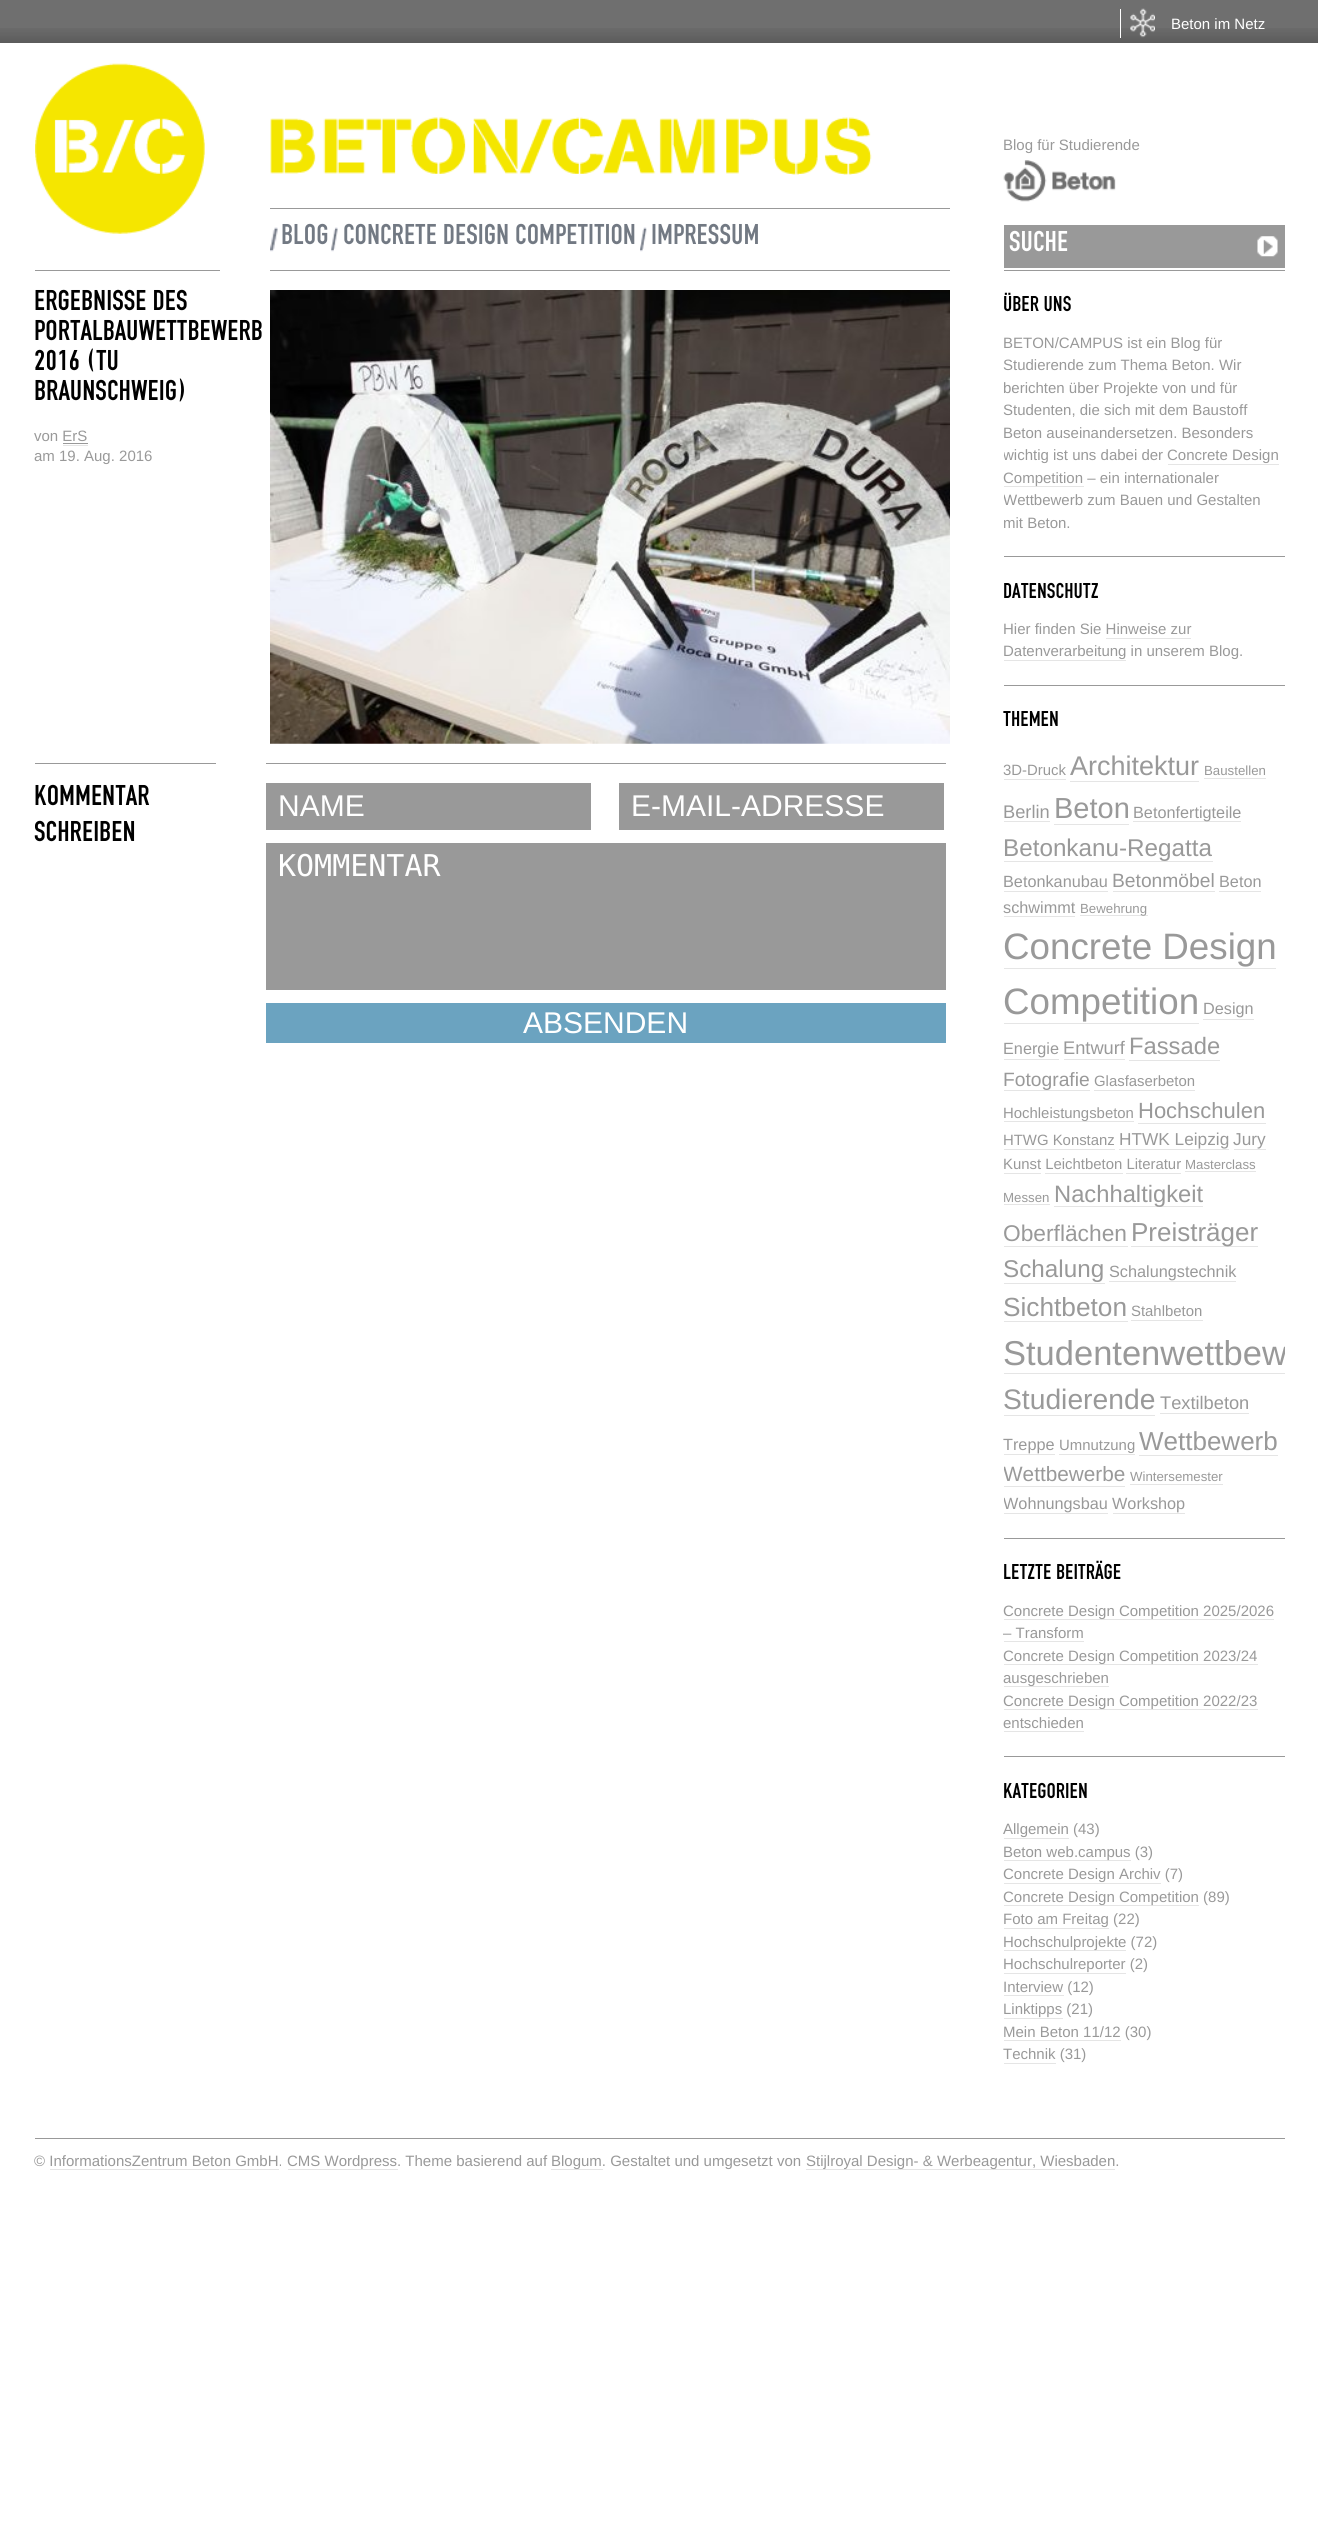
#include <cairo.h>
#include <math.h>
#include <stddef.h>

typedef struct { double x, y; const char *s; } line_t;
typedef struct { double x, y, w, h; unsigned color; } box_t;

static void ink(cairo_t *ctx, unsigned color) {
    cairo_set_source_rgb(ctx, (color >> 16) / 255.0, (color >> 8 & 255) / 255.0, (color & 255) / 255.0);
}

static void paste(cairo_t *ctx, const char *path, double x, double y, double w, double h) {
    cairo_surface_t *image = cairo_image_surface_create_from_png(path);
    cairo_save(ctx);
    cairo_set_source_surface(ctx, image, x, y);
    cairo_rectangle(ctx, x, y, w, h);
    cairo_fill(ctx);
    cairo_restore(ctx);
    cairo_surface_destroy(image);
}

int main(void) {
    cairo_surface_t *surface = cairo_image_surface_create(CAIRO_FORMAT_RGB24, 1318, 2535);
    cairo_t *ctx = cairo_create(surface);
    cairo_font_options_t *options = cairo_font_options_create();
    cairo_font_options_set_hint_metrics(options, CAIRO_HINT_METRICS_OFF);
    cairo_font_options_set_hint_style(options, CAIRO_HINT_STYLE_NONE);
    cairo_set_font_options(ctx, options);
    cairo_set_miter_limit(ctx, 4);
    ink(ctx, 0xFFFFFF);
    cairo_paint(ctx);
    ink(ctx, 0x6F6F6F);
    cairo_rectangle(ctx, 0, 0, 1318, 43);
    cairo_fill(ctx);
    paste(ctx, "media/1.png", 0, 28, 1318, 15);
    paste(ctx, "media/2.png", 1130, 8, 25, 30);
    ink(ctx, 0xFFFFFF);
    cairo_rectangle(ctx, 1120, 9, 1, 29);
    cairo_fill(ctx);
    cairo_select_font_face(ctx, "Liberation Sans", CAIRO_FONT_SLANT_NORMAL, CAIRO_FONT_WEIGHT_NORMAL);
    cairo_set_font_size(ctx, 15);
    cairo_move_to(ctx, 1171, 29);
    cairo_show_text(ctx, "Beton im Netz");
    paste(ctx, "media/3.png", 35, 63, 170, 171);
    paste(ctx, "media/4.png", 270, 117, 602, 58);
    ink(ctx, 0x999999);
    cairo_rectangle(ctx, 270, 208, 680, 1);
    cairo_fill(ctx);
    paste(ctx, "media/5.png", 270, 227, 8, 25);
    cairo_select_font_face(ctx, "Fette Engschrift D", CAIRO_FONT_SLANT_NORMAL, CAIRO_FONT_WEIGHT_NORMAL);
    cairo_set_font_size(ctx, 30);
    ink(ctx, 0x727983);
    cairo_move_to(ctx, 281, 244);
    cairo_show_text(ctx, "BLOG");
    paste(ctx, "media/6.png", 331, 227, 7, 25);
    cairo_move_to(ctx, 343, 244);
    cairo_show_text(ctx, "CONCRETE DESIGN COMPETITION");
    paste(ctx, "media/7.png", 640, 227, 7, 25);
    cairo_move_to(ctx, 651, 244);
    cairo_show_text(ctx, "IMPRESSUM");
    cairo_select_font_face(ctx, "Liberation Sans", CAIRO_FONT_SLANT_NORMAL, CAIRO_FONT_WEIGHT_NORMAL);
    cairo_set_font_size(ctx, 15);
    ink(ctx, 0x999999);
    cairo_move_to(ctx, 1003, 150);
    cairo_show_text(ctx, "Blog für Studierende");
    paste(ctx, "media/8.png", 1003, 160, 113, 42);
    cairo_rectangle(ctx, 1004, 225, 281, 43);
    cairo_fill(ctx);
    cairo_select_font_face(ctx, "Fette Engschrift D", CAIRO_FONT_SLANT_NORMAL, CAIRO_FONT_WEIGHT_NORMAL);
    cairo_set_font_size(ctx, 30);
    ink(ctx, 0xFFFFFF);
    cairo_move_to(ctx, 1009, 251);
    cairo_show_text(ctx, "SUCHE");
    paste(ctx, "media/9.png", 1257, 236, 21, 21);
    ink(ctx, 0x999999);
    cairo_rectangle(ctx, 35, 270, 185, 1);
    cairo_fill(ctx);
    ink(ctx, 0x000000);
    {
        static const line_t items[] = {
            {34, 310, "ERGEBNISSE DES"},
            {34, 340, "PORTALBAUWETTBEWERB"},
            {34, 370, "2016 (TU"},
            {34, 400, "BRAUNSCHWEIG)"},
        };
        for (size_t i = 0; i < sizeof items / sizeof *items; i++) {
            cairo_move_to(ctx, items[i].x, items[i].y);
            cairo_show_text(ctx, items[i].s);
        }
    }
    cairo_select_font_face(ctx, "Liberation Sans", CAIRO_FONT_SLANT_NORMAL, CAIRO_FONT_WEIGHT_NORMAL);
    cairo_set_font_size(ctx, 15);
    ink(ctx, 0x999999);
    cairo_move_to(ctx, 34, 441);
    cairo_show_text(ctx, "von ErS");
    cairo_rectangle(ctx, 63, 443, 25, 1);
    cairo_fill(ctx);
    ink(ctx, 0xE5E5E5);
    cairo_rectangle(ctx, 63, 445, 25, 1);
    cairo_fill(ctx);
    ink(ctx, 0x999999);
    cairo_move_to(ctx, 34, 461);
    cairo_show_text(ctx, "am 19. Aug. 2016");
    cairo_rectangle(ctx, 270, 270, 680, 1);
    cairo_fill(ctx);
    paste(ctx, "media/10.png", 270, 290, 680, 454);
    cairo_rectangle(ctx, 35, 763, 181, 1);
    cairo_fill(ctx);
    cairo_select_font_face(ctx, "Fette Engschrift D", CAIRO_FONT_SLANT_NORMAL, CAIRO_FONT_WEIGHT_NORMAL);
    cairo_set_font_size(ctx, 30);
    ink(ctx, 0x000000);
    cairo_move_to(ctx, 34, 805);
    cairo_show_text(ctx, "KOMMENTAR");
    cairo_move_to(ctx, 34, 841);
    cairo_show_text(ctx, "SCHREIBEN");
    ink(ctx, 0x999999);
    cairo_rectangle(ctx, 266, 763, 680, 1);
    cairo_fill(ctx);
    cairo_rectangle(ctx, 266, 783, 325, 47);
    cairo_fill(ctx);
    cairo_select_font_face(ctx, "Liberation Sans", CAIRO_FONT_SLANT_NORMAL, CAIRO_FONT_WEIGHT_NORMAL);
    ink(ctx, 0xFFFFFF);
    cairo_move_to(ctx, 278, 816);
    cairo_show_text(ctx, "NAME");
    ink(ctx, 0x999999);
    cairo_rectangle(ctx, 619, 783, 325, 47);
    cairo_fill(ctx);
    ink(ctx, 0xFFFFFF);
    cairo_move_to(ctx, 631, 816);
    cairo_show_text(ctx, "E-MAIL-ADRESSE");
    ink(ctx, 0x999999);
    cairo_rectangle(ctx, 266, 843, 680, 147);
    cairo_fill(ctx);
    cairo_select_font_face(ctx, "DejaVu Sans Mono", CAIRO_FONT_SLANT_NORMAL, CAIRO_FONT_WEIGHT_NORMAL);
    ink(ctx, 0xFFFFFF);
    cairo_move_to(ctx, 278, 876);
    cairo_show_text(ctx, "KOMMENTAR");
    ink(ctx, 0x6BA3C0);
    cairo_rectangle(ctx, 266, 1003, 680, 40);
    cairo_fill(ctx);
    cairo_select_font_face(ctx, "Liberation Sans", CAIRO_FONT_SLANT_NORMAL, CAIRO_FONT_WEIGHT_NORMAL);
    ink(ctx, 0xFFFFFF);
    cairo_move_to(ctx, 523, 1033);
    cairo_show_text(ctx, "ABSENDEN");
    ink(ctx, 0x999999);
    cairo_rectangle(ctx, 1004, 270, 281, 1);
    cairo_fill(ctx);
    cairo_select_font_face(ctx, "Fette Engschrift D", CAIRO_FONT_SLANT_NORMAL, CAIRO_FONT_WEIGHT_NORMAL);
    cairo_set_font_size(ctx, 22.5);
    ink(ctx, 0x000000);
    cairo_move_to(ctx, 1003, 311);
    cairo_show_text(ctx, "ÜBER UNS");
    cairo_select_font_face(ctx, "Liberation Sans", CAIRO_FONT_SLANT_NORMAL, CAIRO_FONT_WEIGHT_NORMAL);
    cairo_set_font_size(ctx, 15);
    ink(ctx, 0x999999);
    {
        static const line_t items[] = {
            {1003, 348, "BETON/CAMPUS ist ein Blog für"},
            {1003, 370, "Studierende zum Thema Beton. Wir"},
            {1003, 393, "berichten über Projekte von und für"},
            {1003, 415, "Studenten, die sich mit dem Baustoff"},
            {1003, 438, "Beton auseinandersetzen. Besonders"},
        };
        for (size_t i = 0; i < sizeof items / sizeof *items; i++) {
            cairo_move_to(ctx, items[i].x, items[i].y);
            cairo_show_text(ctx, items[i].s);
        }
    }
    cairo_save(ctx);
    cairo_rectangle(ctx, 1004, 270, 281, 1818);
    cairo_clip(ctx);
    cairo_move_to(ctx, 1003, 460);
    cairo_show_text(ctx, "wichtig ist uns dabei der");
    cairo_restore(ctx);
    cairo_move_to(ctx, 1167, 460);
    cairo_show_text(ctx, "Concrete Design");
    ink(ctx, 0xE5E5E5);
    cairo_rectangle(ctx, 1168, 464, 111, 1);
    cairo_fill(ctx);
    cairo_rectangle(ctx, 1004, 486, 80, 1);
    cairo_fill(ctx);
    ink(ctx, 0x999999);
    cairo_move_to(ctx, 1003, 483);
    cairo_show_text(ctx, "Competition – ein internationaler");
    cairo_save(ctx);
    cairo_rectangle(ctx, 1004, 270, 281, 1818);
    cairo_clip(ctx);
    cairo_move_to(ctx, 1003, 505);
    cairo_show_text(ctx, "Wettbewerb zum Bauen und Gestalten");
    cairo_restore(ctx);
    cairo_move_to(ctx, 1003, 528);
    cairo_show_text(ctx, "mit Beton.");
    cairo_rectangle(ctx, 1004, 556, 281, 1);
    cairo_fill(ctx);
    cairo_select_font_face(ctx, "Fette Engschrift D", CAIRO_FONT_SLANT_NORMAL, CAIRO_FONT_WEIGHT_NORMAL);
    cairo_set_font_size(ctx, 22.5);
    ink(ctx, 0x000000);
    cairo_move_to(ctx, 1003, 598);
    cairo_show_text(ctx, "DATENSCHUTZ");
    cairo_select_font_face(ctx, "Liberation Sans", CAIRO_FONT_SLANT_NORMAL, CAIRO_FONT_WEIGHT_NORMAL);
    cairo_set_font_size(ctx, 15);
    ink(ctx, 0x999999);
    cairo_move_to(ctx, 1003, 634);
    cairo_show_text(ctx, "Hier finden Sie Hinweise zur");
    cairo_move_to(ctx, 1003, 656);
    cairo_show_text(ctx, "Datenverarbeitung in unserem Blog.");
    {
        static const box_t items[] = {
            {1106, 638, 85, 1, 0xE5E5E5},
            {1004, 660, 122, 1, 0xE5E5E5},
            {1004, 685, 281, 1, 0x999999},
        };
        for (size_t i = 0; i < sizeof items / sizeof *items; i++) {
            ink(ctx, items[i].color);
            cairo_rectangle(ctx, items[i].x, items[i].y, items[i].w, items[i].h);
            cairo_fill(ctx);
        }
    }
    cairo_select_font_face(ctx, "Fette Engschrift D", CAIRO_FONT_SLANT_NORMAL, CAIRO_FONT_WEIGHT_NORMAL);
    cairo_set_font_size(ctx, 22.5);
    ink(ctx, 0x000000);
    cairo_move_to(ctx, 1003, 726);
    cairo_show_text(ctx, "THEMEN");
    cairo_select_font_face(ctx, "Liberation Sans", CAIRO_FONT_SLANT_NORMAL, CAIRO_FONT_WEIGHT_NORMAL);
    cairo_set_font_size(ctx, 14.9);
    ink(ctx, 0x999999);
    cairo_move_to(ctx, 1003, 775);
    cairo_show_text(ctx, "3D-Druck");
    ink(ctx, 0xE5E5E5);
    cairo_rectangle(ctx, 1004, 779, 62, 1);
    cairo_fill(ctx);
    cairo_set_font_size(ctx, 27);
    ink(ctx, 0x999999);
    cairo_move_to(ctx, 1070, 775);
    cairo_show_text(ctx, "Architektur");
    ink(ctx, 0xE5E5E5);
    cairo_rectangle(ctx, 1070, 781, 129, 1);
    cairo_fill(ctx);
    cairo_set_font_size(ctx, 13.25);
    ink(ctx, 0x999999);
    cairo_move_to(ctx, 1204, 775);
    cairo_show_text(ctx, "Baustellen");
    ink(ctx, 0xE5E5E5);
    cairo_rectangle(ctx, 1204, 778, 62, 1);
    cairo_fill(ctx);
    cairo_set_font_size(ctx, 18.25);
    ink(ctx, 0x999999);
    cairo_move_to(ctx, 1003, 818);
    cairo_show_text(ctx, "Berlin");
    ink(ctx, 0xE5E5E5);
    cairo_rectangle(ctx, 1004, 821, 46, 1);
    cairo_fill(ctx);
    cairo_set_font_size(ctx, 29);
    ink(ctx, 0x999999);
    cairo_move_to(ctx, 1054, 818);
    cairo_show_text(ctx, "Beton");
    ink(ctx, 0xE5E5E5);
    cairo_rectangle(ctx, 1054, 824, 75, 1);
    cairo_fill(ctx);
    cairo_rectangle(ctx, 1133, 821, 108, 1);
    cairo_fill(ctx);
    cairo_set_font_size(ctx, 16.25);
    ink(ctx, 0x999999);
    cairo_move_to(ctx, 1133, 818);
    cairo_show_text(ctx, "Betonfertigteile");
    ink(ctx, 0xE5E5E5);
    cairo_rectangle(ctx, 1004, 861, 209, 1);
    cairo_fill(ctx);
    cairo_set_font_size(ctx, 24.25);
    ink(ctx, 0x999999);
    cairo_move_to(ctx, 1003, 856);
    cairo_show_text(ctx, "Betonkanu-Regatta");
    cairo_set_font_size(ctx, 16.25);
    cairo_move_to(ctx, 1003, 887);
    cairo_show_text(ctx, "Betonkanubau");
    ink(ctx, 0xE5E5E5);
    cairo_rectangle(ctx, 1004, 891, 104, 1);
    cairo_fill(ctx);
    cairo_set_font_size(ctx, 19.25);
    ink(ctx, 0x999999);
    cairo_move_to(ctx, 1112, 887);
    cairo_show_text(ctx, "Betonmöbel");
    ink(ctx, 0xE5E5E5);
    cairo_rectangle(ctx, 1113, 891, 102, 1);
    cairo_fill(ctx);
    cairo_set_font_size(ctx, 16.25);
    ink(ctx, 0x999999);
    cairo_move_to(ctx, 1219, 887);
    cairo_show_text(ctx, "Beton");
    ink(ctx, 0xE5E5E5);
    cairo_rectangle(ctx, 1219, 891, 42, 1);
    cairo_fill(ctx);
    ink(ctx, 0x999999);
    cairo_move_to(ctx, 1003, 913);
    cairo_show_text(ctx, "schwimmt");
    ink(ctx, 0xE5E5E5);
    cairo_rectangle(ctx, 1004, 916, 71, 1);
    cairo_fill(ctx);
    cairo_rectangle(ctx, 1080, 915, 68, 1);
    cairo_fill(ctx);
    cairo_set_font_size(ctx, 13.25);
    ink(ctx, 0x999999);
    cairo_move_to(ctx, 1080, 913);
    cairo_show_text(ctx, "Bewehrung");
    cairo_set_font_size(ctx, 36.75);
    cairo_move_to(ctx, 1003, 959);
    cairo_show_text(ctx, "Concrete Design");
    ink(ctx, 0xE5E5E5);
    cairo_rectangle(ctx, 1004, 968, 272, 1);
    cairo_fill(ctx);
    ink(ctx, 0x999999);
    cairo_move_to(ctx, 1003, 1014);
    cairo_show_text(ctx, "Competition");
    ink(ctx, 0xE5E5E5);
    cairo_rectangle(ctx, 1004, 1023, 195, 1);
    cairo_fill(ctx);
    cairo_set_font_size(ctx, 16.25);
    ink(ctx, 0x999999);
    cairo_move_to(ctx, 1203, 1014);
    cairo_show_text(ctx, "Design");
    ink(ctx, 0xE5E5E5);
    cairo_rectangle(ctx, 1203, 1019, 51, 1);
    cairo_fill(ctx);
    ink(ctx, 0x999999);
    cairo_move_to(ctx, 1003, 1054);
    cairo_show_text(ctx, "Energie");
    ink(ctx, 0xE5E5E5);
    cairo_rectangle(ctx, 1004, 1059, 55, 1);
    cairo_fill(ctx);
    cairo_set_font_size(ctx, 18.25);
    ink(ctx, 0x999999);
    cairo_move_to(ctx, 1063, 1054);
    cairo_show_text(ctx, "Entwurf");
    ink(ctx, 0xE5E5E5);
    cairo_rectangle(ctx, 1064, 1059, 61, 1);
    cairo_fill(ctx);
    cairo_set_font_size(ctx, 23.75);
    ink(ctx, 0x999999);
    cairo_move_to(ctx, 1129, 1054);
    cairo_show_text(ctx, "Fassade");
    ink(ctx, 0xE5E5E5);
    cairo_rectangle(ctx, 1129, 1060, 91, 1);
    cairo_fill(ctx);
    cairo_set_font_size(ctx, 19.25);
    ink(ctx, 0x999999);
    cairo_move_to(ctx, 1003, 1086);
    cairo_show_text(ctx, "Fotografie");
    ink(ctx, 0xE5E5E5);
    cairo_rectangle(ctx, 1004, 1090, 86, 1);
    cairo_fill(ctx);
    cairo_set_font_size(ctx, 14.9);
    ink(ctx, 0x999999);
    cairo_move_to(ctx, 1094, 1086);
    cairo_show_text(ctx, "Glasfaserbeton");
    ink(ctx, 0xE5E5E5);
    cairo_rectangle(ctx, 1094, 1090, 101, 1);
    cairo_fill(ctx);
    cairo_rectangle(ctx, 1004, 1121, 130, 1);
    cairo_fill(ctx);
    ink(ctx, 0x999999);
    cairo_move_to(ctx, 1003, 1118);
    cairo_show_text(ctx, "Hochleistungsbeton");
    cairo_set_font_size(ctx, 22);
    cairo_move_to(ctx, 1138, 1118);
    cairo_show_text(ctx, "Hochschulen");
    ink(ctx, 0xE5E5E5);
    cairo_rectangle(ctx, 1138, 1123, 128, 1);
    cairo_fill(ctx);
    cairo_set_font_size(ctx, 14.9);
    ink(ctx, 0x999999);
    cairo_move_to(ctx, 1003, 1145);
    cairo_show_text(ctx, "HTWG Konstanz");
    ink(ctx, 0xE5E5E5);
    cairo_rectangle(ctx, 1004, 1149, 111, 1);
    cairo_fill(ctx);
    cairo_set_font_size(ctx, 17.25);
    ink(ctx, 0x999999);
    cairo_move_to(ctx, 1119, 1145);
    cairo_show_text(ctx, "HTWK Leipzig");
    ink(ctx, 0xE5E5E5);
    cairo_rectangle(ctx, 1119, 1149, 110, 1);
    cairo_fill(ctx);
    ink(ctx, 0x999999);
    cairo_move_to(ctx, 1233, 1145);
    cairo_show_text(ctx, "Jury");
    ink(ctx, 0xE5E5E5);
    cairo_rectangle(ctx, 1234, 1149, 32, 1);
    cairo_fill(ctx);
    cairo_set_font_size(ctx, 14.9);
    ink(ctx, 0x999999);
    cairo_move_to(ctx, 1003, 1169);
    cairo_show_text(ctx, "Kunst Leichtbeton Literatur");
    ink(ctx, 0xE5E5E5);
    cairo_rectangle(ctx, 1004, 1173, 37, 1);
    cairo_fill(ctx);
    cairo_set_font_size(ctx, 13.25);
    ink(ctx, 0x999999);
    cairo_move_to(ctx, 1185, 1169);
    cairo_show_text(ctx, "Masterclass");
    {
        static const box_t items[] = {
            {1185, 1171, 71, 1, 0xE5E5E5},
            {1045, 1173, 78, 1, 0xE5E5E5},
            {1126, 1173, 55, 1, 0xE5E5E5},
        };
        for (size_t i = 0; i < sizeof items / sizeof *items; i++) {
            ink(ctx, items[i].color);
            cairo_rectangle(ctx, items[i].x, items[i].y, items[i].w, items[i].h);
            cairo_fill(ctx);
        }
    }
    ink(ctx, 0x999999);
    cairo_move_to(ctx, 1003, 1202);
    cairo_show_text(ctx, "Messen");
    ink(ctx, 0xE5E5E5);
    cairo_rectangle(ctx, 1004, 1204, 46, 1);
    cairo_fill(ctx);
    cairo_rectangle(ctx, 1054, 1206, 149, 1);
    cairo_fill(ctx);
    cairo_set_font_size(ctx, 23.75);
    ink(ctx, 0x999999);
    cairo_move_to(ctx, 1054, 1202);
    cairo_show_text(ctx, "Nachhaltigkeit");
    cairo_set_font_size(ctx, 22.75);
    cairo_move_to(ctx, 1003, 1241);
    cairo_show_text(ctx, "Oberflächen");
    ink(ctx, 0xE5E5E5);
    cairo_rectangle(ctx, 1004, 1246, 124, 1);
    cairo_fill(ctx);
    cairo_rectangle(ctx, 1131, 1246, 127, 1);
    cairo_fill(ctx);
    cairo_set_font_size(ctx, 26);
    ink(ctx, 0x999999);
    cairo_move_to(ctx, 1131, 1241);
    cairo_show_text(ctx, "Preisträger");
    cairo_set_font_size(ctx, 24.25);
    cairo_move_to(ctx, 1003, 1277);
    cairo_show_text(ctx, "Schalung");
    ink(ctx, 0xE5E5E5);
    cairo_rectangle(ctx, 1004, 1283, 101, 1);
    cairo_fill(ctx);
    cairo_set_font_size(ctx, 16.25);
    ink(ctx, 0x999999);
    cairo_move_to(ctx, 1109, 1277);
    cairo_show_text(ctx, "Schalungstechnik");
    ink(ctx, 0xE5E5E5);
    cairo_rectangle(ctx, 1109, 1281, 127, 1);
    cairo_fill(ctx);
    cairo_set_font_size(ctx, 26.25);
    ink(ctx, 0x999999);
    cairo_move_to(ctx, 1003, 1316);
    cairo_show_text(ctx, "Sichtbeton");
    ink(ctx, 0xE5E5E5);
    cairo_rectangle(ctx, 1004, 1321, 124, 1);
    cairo_fill(ctx);
    cairo_set_font_size(ctx, 14.9);
    ink(ctx, 0x999999);
    cairo_move_to(ctx, 1131, 1316);
    cairo_show_text(ctx, "Stahlbeton");
    ink(ctx, 0xE5E5E5);
    cairo_rectangle(ctx, 1131, 1320, 72, 1);
    cairo_fill(ctx);
    cairo_save(ctx);
    cairo_rectangle(ctx, 1004, 270, 281, 1818);
    cairo_clip(ctx);
    cairo_set_font_size(ctx, 34.5);
    ink(ctx, 0x999999);
    cairo_move_to(ctx, 1003, 1365);
    cairo_show_text(ctx, "Studentenwettbew");
    cairo_restore(ctx);
    cairo_rectangle(ctx, 1004, 1373, 281, 1);
    cairo_fill(ctx);
    cairo_set_font_size(ctx, 28.25);
    ink(ctx, 0x999999);
    cairo_move_to(ctx, 1003, 1409);
    cairo_show_text(ctx, "Studierende");
    ink(ctx, 0xE5E5E5);
    cairo_rectangle(ctx, 1004, 1415, 151, 1);
    cairo_fill(ctx);
    cairo_set_font_size(ctx, 18.25);
    ink(ctx, 0x999999);
    cairo_move_to(ctx, 1160, 1409);
    cairo_show_text(ctx, "Textilbeton");
    ink(ctx, 0xE5E5E5);
    cairo_rectangle(ctx, 1160, 1413, 89, 1);
    cairo_fill(ctx);
    cairo_set_font_size(ctx, 16.25);
    ink(ctx, 0x999999);
    cairo_move_to(ctx, 1003, 1450);
    cairo_show_text(ctx, "Treppe");
    ink(ctx, 0xE5E5E5);
    cairo_rectangle(ctx, 1004, 1454, 51, 1);
    cairo_fill(ctx);
    cairo_set_font_size(ctx, 14.9);
    ink(ctx, 0x999999);
    cairo_move_to(ctx, 1059, 1450);
    cairo_show_text(ctx, "Umnutzung");
    ink(ctx, 0xE5E5E5);
    cairo_rectangle(ctx, 1059, 1454, 76, 1);
    cairo_fill(ctx);
    cairo_set_font_size(ctx, 26);
    ink(ctx, 0x999999);
    cairo_move_to(ctx, 1139, 1450);
    cairo_show_text(ctx, "Wettbewerb");
    ink(ctx, 0xE5E5E5);
    cairo_rectangle(ctx, 1139, 1455, 139, 1);
    cairo_fill(ctx);
    cairo_save(ctx);
    cairo_rectangle(ctx, 1004, 270, 281, 1818);
    cairo_clip(ctx);
    cairo_set_font_size(ctx, 20.75);
    ink(ctx, 0x999999);
    cairo_move_to(ctx, 1003, 1481);
    cairo_show_text(ctx, "Wettbewerbe");
    cairo_restore(ctx);
    cairo_rectangle(ctx, 1004, 1486, 121, 1);
    cairo_fill(ctx);
    cairo_set_font_size(ctx, 13.25);
    ink(ctx, 0x999999);
    cairo_move_to(ctx, 1130, 1481);
    cairo_show_text(ctx, "Wintersemester");
    ink(ctx, 0xE5E5E5);
    cairo_rectangle(ctx, 1130, 1484, 93, 1);
    cairo_fill(ctx);
    cairo_save(ctx);
    cairo_rectangle(ctx, 1004, 270, 281, 1818);
    cairo_clip(ctx);
    cairo_set_font_size(ctx, 16.25);
    ink(ctx, 0x999999);
    cairo_move_to(ctx, 1003, 1509);
    cairo_show_text(ctx, "Wohnungsbau");
    cairo_restore(ctx);
    cairo_rectangle(ctx, 1004, 1513, 104, 1);
    cairo_fill(ctx);
    cairo_set_font_size(ctx, 16.25);
    ink(ctx, 0x999999);
    cairo_move_to(ctx, 1112, 1509);
    cairo_show_text(ctx, "Workshop");
    ink(ctx, 0xE5E5E5);
    cairo_rectangle(ctx, 1113, 1513, 72, 1);
    cairo_fill(ctx);
    ink(ctx, 0x999999);
    cairo_rectangle(ctx, 1004, 1538, 281, 1);
    cairo_fill(ctx);
    cairo_select_font_face(ctx, "Fette Engschrift D", CAIRO_FONT_SLANT_NORMAL, CAIRO_FONT_WEIGHT_NORMAL);
    cairo_set_font_size(ctx, 22.5);
    ink(ctx, 0x000000);
    cairo_move_to(ctx, 1003, 1579);
    cairo_show_text(ctx, "LETZTE BEITRÄGE");
    ink(ctx, 0xE5E5E5);
    cairo_rectangle(ctx, 1004, 1619, 270, 1);
    cairo_fill(ctx);
    cairo_select_font_face(ctx, "Liberation Sans", CAIRO_FONT_SLANT_NORMAL, CAIRO_FONT_WEIGHT_NORMAL);
    cairo_set_font_size(ctx, 15);
    ink(ctx, 0x999999);
    cairo_move_to(ctx, 1003, 1616);
    cairo_show_text(ctx, "Concrete Design Competition 2025/2026");
    cairo_move_to(ctx, 1003, 1638);
    cairo_show_text(ctx, "– Transform");
    ink(ctx, 0xE5E5E5);
    cairo_rectangle(ctx, 1004, 1641, 80, 1);
    cairo_fill(ctx);
    cairo_rectangle(ctx, 1004, 1664, 254, 1);
    cairo_fill(ctx);
    ink(ctx, 0x999999);
    cairo_move_to(ctx, 1003, 1661);
    cairo_show_text(ctx, "Concrete Design Competition 2023/24");
    ink(ctx, 0xE5E5E5);
    cairo_rectangle(ctx, 1004, 1686, 105, 1);
    cairo_fill(ctx);
    ink(ctx, 0x999999);
    cairo_move_to(ctx, 1003, 1683);
    cairo_show_text(ctx, "ausgeschrieben");
    ink(ctx, 0xE5E5E5);
    cairo_rectangle(ctx, 1004, 1709, 254, 1);
    cairo_fill(ctx);
    ink(ctx, 0x999999);
    cairo_move_to(ctx, 1003, 1706);
    cairo_show_text(ctx, "Concrete Design Competition 2022/23");
    cairo_move_to(ctx, 1003, 1728);
    cairo_show_text(ctx, "entschieden");
    ink(ctx, 0xE5E5E5);
    cairo_rectangle(ctx, 1004, 1731, 80, 1);
    cairo_fill(ctx);
    ink(ctx, 0x999999);
    cairo_rectangle(ctx, 1004, 1756, 281, 1);
    cairo_fill(ctx);
    cairo_select_font_face(ctx, "Fette Engschrift D", CAIRO_FONT_SLANT_NORMAL, CAIRO_FONT_WEIGHT_NORMAL);
    cairo_set_font_size(ctx, 22.5);
    ink(ctx, 0x000000);
    cairo_move_to(ctx, 1003, 1798);
    cairo_show_text(ctx, "KATEGORIEN");
    cairo_select_font_face(ctx, "Liberation Sans", CAIRO_FONT_SLANT_NORMAL, CAIRO_FONT_WEIGHT_NORMAL);
    cairo_set_font_size(ctx, 15);
    ink(ctx, 0x999999);
    cairo_move_to(ctx, 1003, 1834);
    cairo_show_text(ctx, "Allgemein (43)");
    ink(ctx, 0xE5E5E5);
    cairo_rectangle(ctx, 1004, 1838, 65, 1);
    cairo_fill(ctx);
    cairo_rectangle(ctx, 1004, 1860, 127, 1);
    cairo_fill(ctx);
    ink(ctx, 0x999999);
    cairo_move_to(ctx, 1003, 1857);
    cairo_show_text(ctx, "Beton web.campus (3)");
    cairo_move_to(ctx, 1003, 1879);
    cairo_show_text(ctx, "Concrete Design Archiv (7)");
    ink(ctx, 0xE5E5E5);
    cairo_rectangle(ctx, 1004, 1883, 157, 1);
    cairo_fill(ctx);
    cairo_rectangle(ctx, 1004, 1905, 195, 1);
    cairo_fill(ctx);
    ink(ctx, 0x999999);
    cairo_move_to(ctx, 1003, 1902);
    cairo_show_text(ctx, "Concrete Design Competition (89)");
    cairo_move_to(ctx, 1003, 1924);
    cairo_show_text(ctx, "Foto am Freitag (22)");
    ink(ctx, 0xE5E5E5);
    cairo_rectangle(ctx, 1004, 1928, 105, 1);
    cairo_fill(ctx);
    cairo_rectangle(ctx, 1004, 1950, 122, 1);
    cairo_fill(ctx);
    ink(ctx, 0x999999);
    cairo_move_to(ctx, 1003, 1947);
    cairo_show_text(ctx, "Hochschulprojekte (72)");
    cairo_move_to(ctx, 1003, 1969);
    cairo_show_text(ctx, "Hochschulreporter (2)");
    ink(ctx, 0xE5E5E5);
    cairo_rectangle(ctx, 1004, 1973, 122, 1);
    cairo_fill(ctx);
    cairo_rectangle(ctx, 1004, 1995, 60, 1);
    cairo_fill(ctx);
    ink(ctx, 0x999999);
    cairo_move_to(ctx, 1003, 1992);
    cairo_show_text(ctx, "Interview (12)");
    cairo_move_to(ctx, 1003, 2014);
    cairo_show_text(ctx, "Linktipps (21)");
    ink(ctx, 0xE5E5E5);
    cairo_rectangle(ctx, 1004, 2018, 59, 1);
    cairo_fill(ctx);
    cairo_rectangle(ctx, 1004, 2040, 117, 1);
    cairo_fill(ctx);
    ink(ctx, 0x999999);
    cairo_move_to(ctx, 1003, 2037);
    cairo_show_text(ctx, "Mein Beton 11/12 (30)");
    cairo_move_to(ctx, 1003, 2059);
    cairo_show_text(ctx, "Technik (31)");
    ink(ctx, 0xE5E5E5);
    cairo_rectangle(ctx, 1004, 2063, 52, 1);
    cairo_fill(ctx);
    ink(ctx, 0x999999);
    cairo_rectangle(ctx, 35, 2138, 1250, 1);
    cairo_fill(ctx);
    cairo_move_to(ctx, 34, 2166);
    cairo_show_text(ctx, "© InformationsZentrum Beton GmbH.");
    ink(ctx, 0xE5E5E5);
    cairo_rectangle(ctx, 288, 2169, 110, 1);
    cairo_fill(ctx);
    ink(ctx, 0x999999);
    cairo_move_to(ctx, 287, 2166);
    cairo_show_text(ctx, "CMS Wordpress. Theme basierend auf");
    ink(ctx, 0xE5E5E5);
    cairo_rectangle(ctx, 551, 2169, 52, 1);
    cairo_fill(ctx);
    ink(ctx, 0x999999);
    cairo_move_to(ctx, 551, 2166);
    cairo_show_text(ctx, "Blogum. Gestaltet und umgesetzt von");
    ink(ctx, 0xE5E5E5);
    cairo_rectangle(ctx, 806, 2169, 309, 1);
    cairo_fill(ctx);
    ink(ctx, 0x999999);
    cairo_move_to(ctx, 806, 2166);
    cairo_show_text(ctx, "Stijlroyal Design- & Werbeagentur, Wiesbaden.");
    ink(ctx, 0xE5E5E5);
    cairo_rectangle(ctx, 50, 2169, 229, 1);
    cairo_fill(ctx);
    cairo_surface_write_to_png(surface, "image.png");
    cairo_font_options_destroy(options);
    cairo_destroy(ctx);
    cairo_surface_destroy(surface);
    return 0;
}
